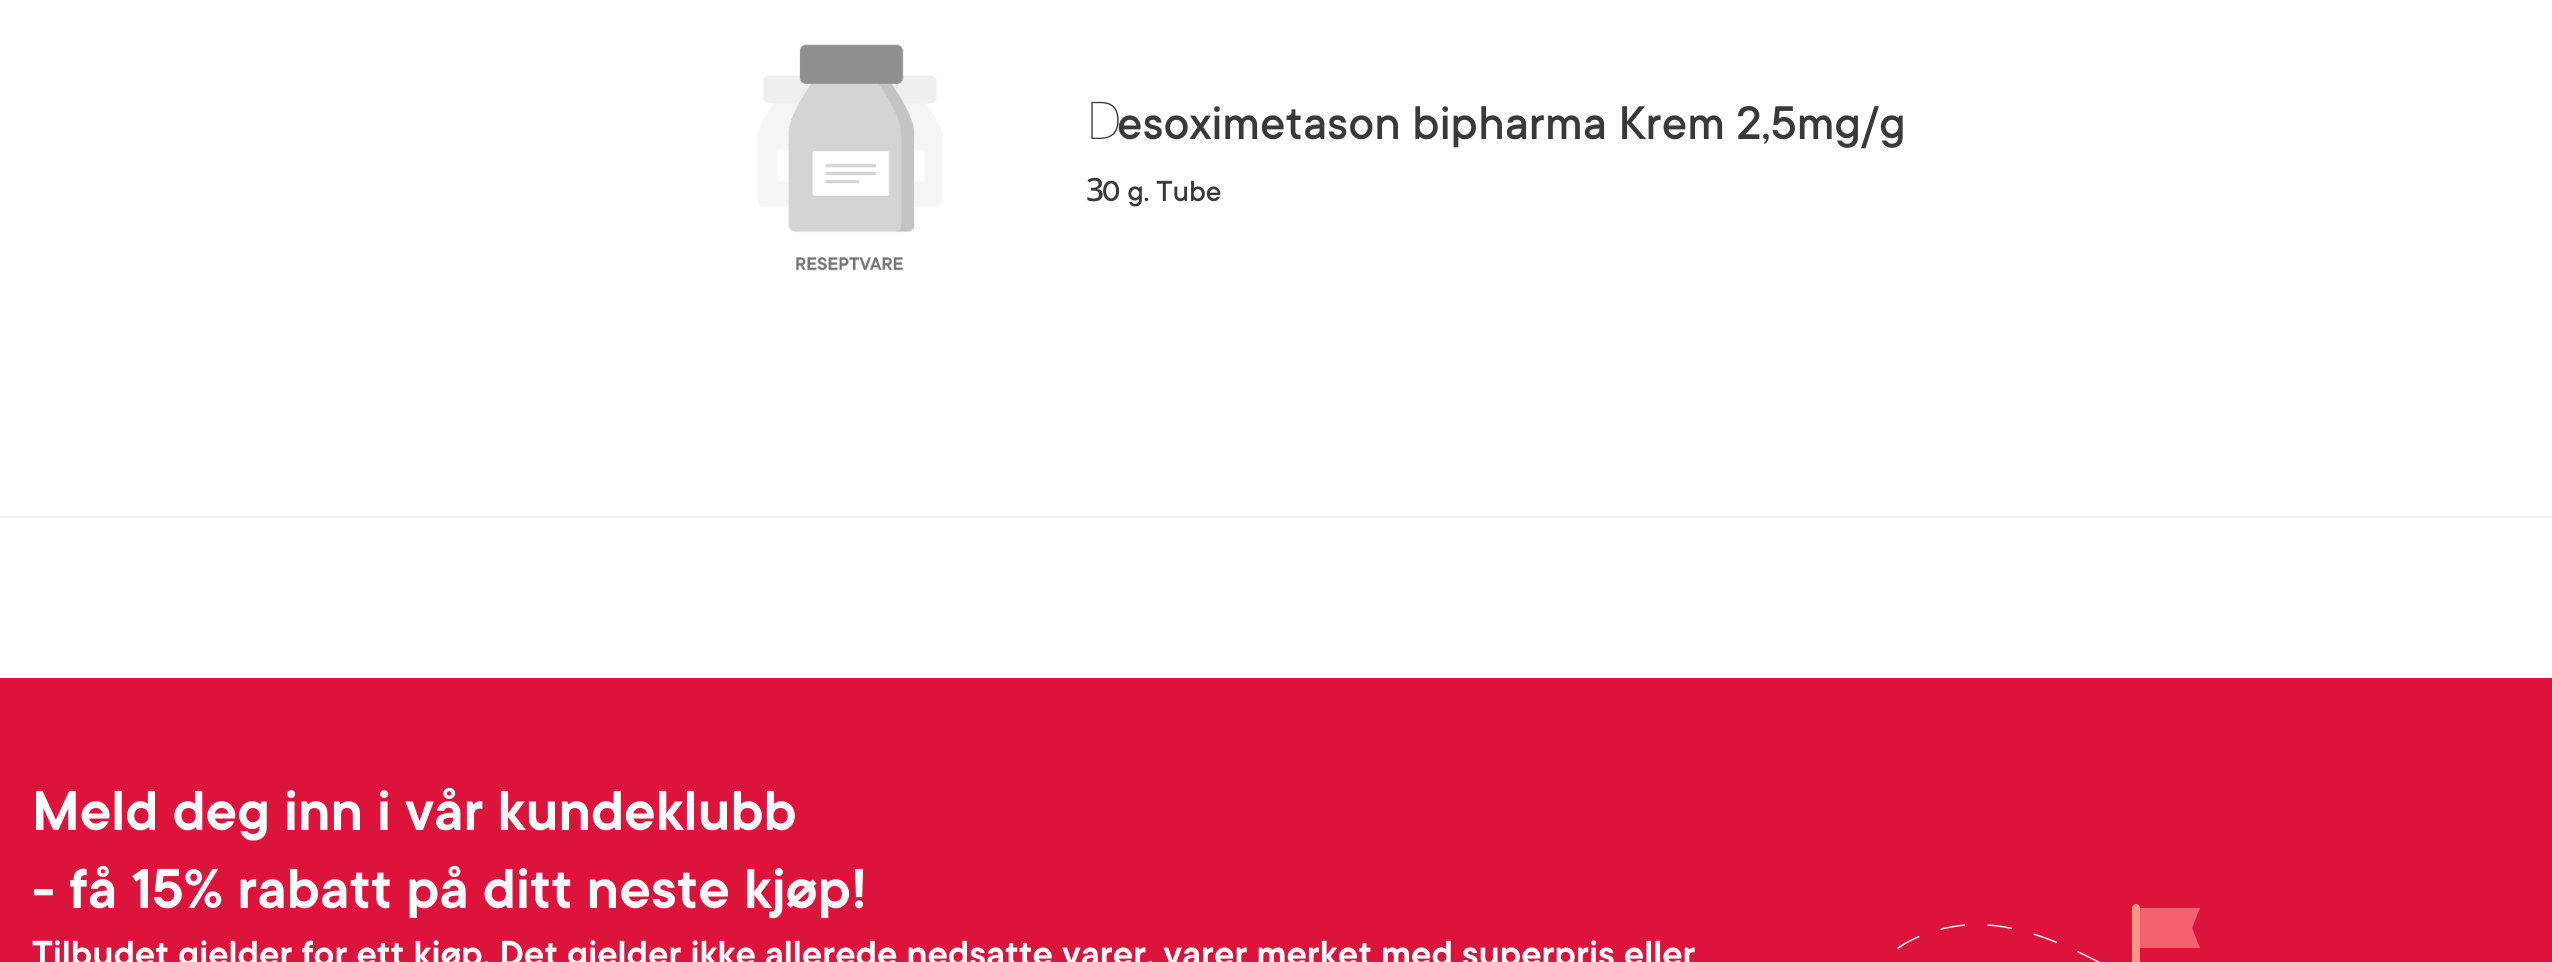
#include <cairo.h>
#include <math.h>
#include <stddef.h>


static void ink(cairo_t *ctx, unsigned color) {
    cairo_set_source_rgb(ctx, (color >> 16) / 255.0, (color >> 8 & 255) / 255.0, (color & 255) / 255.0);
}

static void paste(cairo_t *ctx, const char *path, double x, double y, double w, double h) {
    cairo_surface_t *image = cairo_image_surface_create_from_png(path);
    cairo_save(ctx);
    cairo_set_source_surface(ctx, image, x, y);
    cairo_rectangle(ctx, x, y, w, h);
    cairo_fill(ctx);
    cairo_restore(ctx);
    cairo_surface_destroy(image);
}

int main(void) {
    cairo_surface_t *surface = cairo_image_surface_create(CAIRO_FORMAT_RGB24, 2552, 962);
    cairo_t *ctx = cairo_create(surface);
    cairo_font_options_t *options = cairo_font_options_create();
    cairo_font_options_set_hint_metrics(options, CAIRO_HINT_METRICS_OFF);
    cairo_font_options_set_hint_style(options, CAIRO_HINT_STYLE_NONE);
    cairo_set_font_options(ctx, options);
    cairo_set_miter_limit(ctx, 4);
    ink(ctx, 0xFFFFFF);
    cairo_paint(ctx);
    ink(ctx, 0xEFEFEF);
    cairo_rectangle(ctx, 0, 516, 2552, 2);
    cairo_fill(ctx);
    paste(ctx, "media/1.png", 757, 44, 186, 227);
    cairo_select_font_face(ctx, "Noto Sans Thin", CAIRO_FONT_SLANT_NORMAL, CAIRO_FONT_WEIGHT_NORMAL);
    cairo_set_font_size(ctx, 52);
    ink(ctx, 0x393939);
    cairo_move_to(ctx, 1086, 139);
    cairo_show_text(ctx, "D");
    cairo_select_font_face(ctx, "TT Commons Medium", CAIRO_FONT_SLANT_NORMAL, CAIRO_FONT_WEIGHT_NORMAL);
    cairo_move_to(ctx, 1117, 139);
    cairo_show_text(ctx, "esoximetason bipharma Krem 2,5mg/g");
    cairo_select_font_face(ctx, "Noto Sans Medium", CAIRO_FONT_SLANT_NORMAL, CAIRO_FONT_WEIGHT_NORMAL);
    cairo_set_font_size(ctx, 32);
    cairo_move_to(ctx, 1086, 201);
    cairo_show_text(ctx, "3");
    cairo_select_font_face(ctx, "TT Commons Medium", CAIRO_FONT_SLANT_NORMAL, CAIRO_FONT_WEIGHT_NORMAL);
    cairo_move_to(ctx, 1102, 201);
    cairo_show_text(ctx, "0 g. Tube");
    ink(ctx, 0xDC143C);
    cairo_rectangle(ctx, 0, 678, 2552, 284);
    cairo_fill(ctx);
    cairo_select_font_face(ctx, "TT Commons SemiBold", CAIRO_FONT_SLANT_NORMAL, CAIRO_FONT_WEIGHT_NORMAL);
    cairo_set_font_size(ctx, 62);
    ink(ctx, 0xFFFFFF);
    cairo_move_to(ctx, 32, 830);
    cairo_show_text(ctx, "Meld deg inn i vår kundeklubb");
    cairo_move_to(ctx, 32, 908);
    cairo_show_text(ctx, "- få 15% rabatt på ditt neste kjøp!");
    cairo_set_font_size(ctx, 40);
    cairo_move_to(ctx, 32, 966);
    cairo_show_text(ctx, "Tilbudet gjelder for ett kjøp. Det gjelder ikke allerede nedsatte varer, varer merket med superpris eller");
    paste(ctx, "media/2.png", 1897, 904, 303, 58);
    cairo_surface_write_to_png(surface, "image.png");
    cairo_font_options_destroy(options);
    cairo_destroy(ctx);
    cairo_surface_destroy(surface);
    return 0;
}
